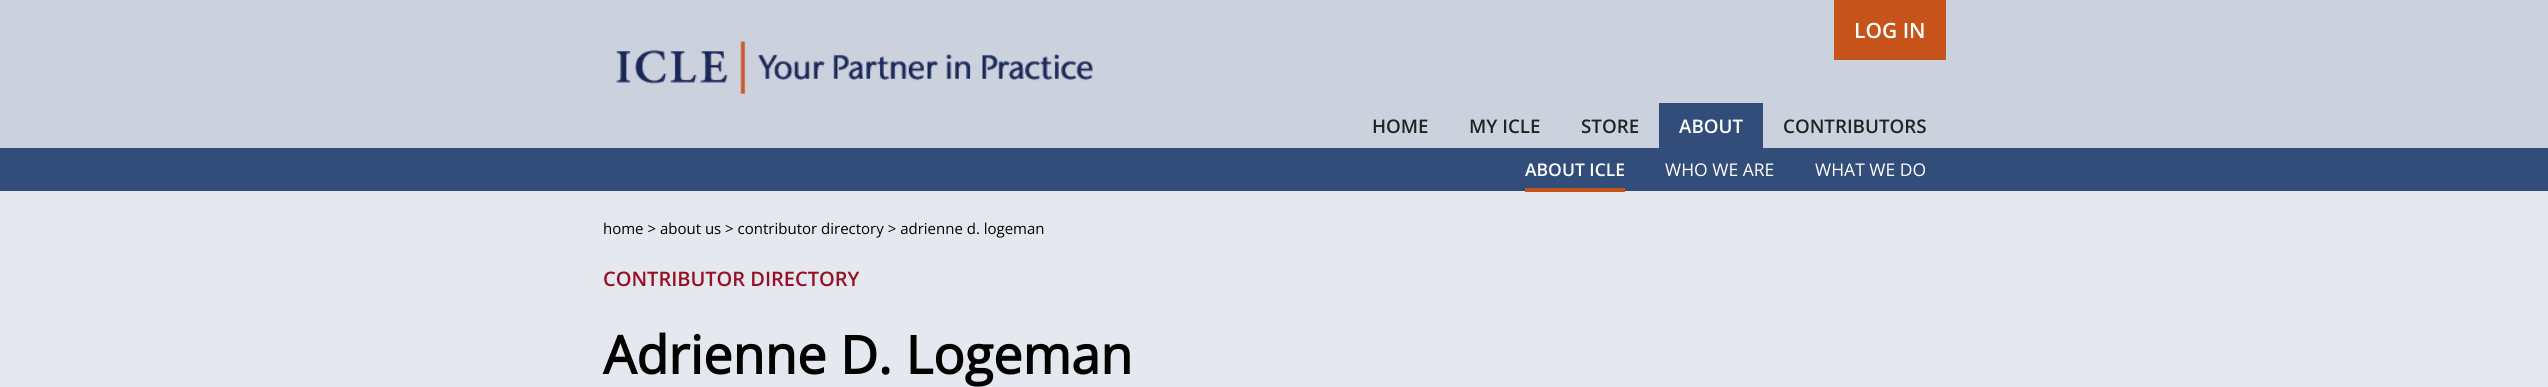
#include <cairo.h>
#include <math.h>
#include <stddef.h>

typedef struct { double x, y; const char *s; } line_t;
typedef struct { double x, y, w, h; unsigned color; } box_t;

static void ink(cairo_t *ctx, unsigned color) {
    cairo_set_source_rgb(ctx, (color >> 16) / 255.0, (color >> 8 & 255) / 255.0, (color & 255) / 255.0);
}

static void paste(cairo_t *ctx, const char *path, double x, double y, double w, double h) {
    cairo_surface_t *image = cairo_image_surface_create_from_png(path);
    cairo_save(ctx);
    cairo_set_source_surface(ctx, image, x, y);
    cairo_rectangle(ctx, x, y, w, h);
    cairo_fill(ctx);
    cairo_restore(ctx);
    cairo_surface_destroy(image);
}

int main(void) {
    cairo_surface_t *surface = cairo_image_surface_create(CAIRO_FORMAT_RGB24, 2548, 387);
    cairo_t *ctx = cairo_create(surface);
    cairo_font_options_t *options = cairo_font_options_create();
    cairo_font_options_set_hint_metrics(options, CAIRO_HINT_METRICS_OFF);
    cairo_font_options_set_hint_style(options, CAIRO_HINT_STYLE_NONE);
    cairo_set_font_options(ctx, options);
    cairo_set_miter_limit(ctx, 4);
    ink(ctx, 0xCCD2DD);
    cairo_paint(ctx);
    ink(ctx, 0xC6531A);
    cairo_rectangle(ctx, 1834, 0, 112, 60);
    cairo_fill(ctx);
    cairo_select_font_face(ctx, "Open Sans SemiBold", CAIRO_FONT_SLANT_NORMAL, CAIRO_FONT_WEIGHT_NORMAL);
    cairo_set_font_size(ctx, 21);
    ink(ctx, 0xFFFFFF);
    cairo_move_to(ctx, 1854, 38);
    cairo_show_text(ctx, "LOG IN");
    paste(ctx, "media/1.png", 616, 41, 477, 53);
    cairo_set_font_size(ctx, 18.75);
    ink(ctx, 0x222222);
    {
        static const line_t items[] = {
            {1372, 133, "HOME"},
            {1469, 133, "MY ICLE"},
            {1581, 133, "STORE"},
        };
        for (size_t i = 0; i < sizeof items / sizeof *items; i++) {
            cairo_move_to(ctx, items[i].x, items[i].y);
            cairo_show_text(ctx, items[i].s);
        }
    }
    ink(ctx, 0x324D7A);
    cairo_rectangle(ctx, 1659, 103, 104, 45);
    cairo_fill(ctx);
    ink(ctx, 0xFFFFFF);
    cairo_move_to(ctx, 1679, 133);
    cairo_show_text(ctx, "ABOUT");
    ink(ctx, 0x222222);
    cairo_move_to(ctx, 1783, 133);
    cairo_show_text(ctx, "CONTRIBUTORS");
    {
        static const box_t items[] = {
            {0, 148, 2548, 43, 0x324D7A},
            {0, 191, 2548, 196, 0xE5E8EE},
            {1525, 188, 100, 4, 0xC6531A},
        };
        for (size_t i = 0; i < sizeof items / sizeof *items; i++) {
            ink(ctx, items[i].color);
            cairo_rectangle(ctx, items[i].x, items[i].y, items[i].w, items[i].h);
            cairo_fill(ctx);
        }
    }
    cairo_set_font_size(ctx, 17.5);
    ink(ctx, 0xFFFFFF);
    cairo_move_to(ctx, 1525, 176);
    cairo_show_text(ctx, "ABOUT ICLE");
    cairo_select_font_face(ctx, "Open Sans", CAIRO_FONT_SLANT_NORMAL, CAIRO_FONT_WEIGHT_NORMAL);
    cairo_move_to(ctx, 1665, 176);
    cairo_show_text(ctx, "WHO WE ARE");
    cairo_move_to(ctx, 1815, 176);
    cairo_show_text(ctx, "WHAT WE DO");
    cairo_set_font_size(ctx, 15);
    ink(ctx, 0x000000);
    cairo_move_to(ctx, 603, 234);
    cairo_show_text(ctx, "home > about us > contributor directory > adrienne d. logeman");
    cairo_select_font_face(ctx, "Open Sans SemiBold", CAIRO_FONT_SLANT_NORMAL, CAIRO_FONT_WEIGHT_NORMAL);
    cairo_set_font_size(ctx, 20);
    ink(ctx, 0x960F23);
    cairo_move_to(ctx, 603, 286);
    cairo_show_text(ctx, "CONTRIBUTOR DIRECTORY");
    cairo_select_font_face(ctx, "Open Sans", CAIRO_FONT_SLANT_NORMAL, CAIRO_FONT_WEIGHT_BOLD);
    cairo_set_font_size(ctx, 52.5);
    ink(ctx, 0x000000);
    cairo_move_to(ctx, 603, 374);
    cairo_show_text(ctx, "Adrienne D. Logeman");
    cairo_surface_write_to_png(surface, "image.png");
    cairo_font_options_destroy(options);
    cairo_destroy(ctx);
    cairo_surface_destroy(surface);
    return 0;
}
